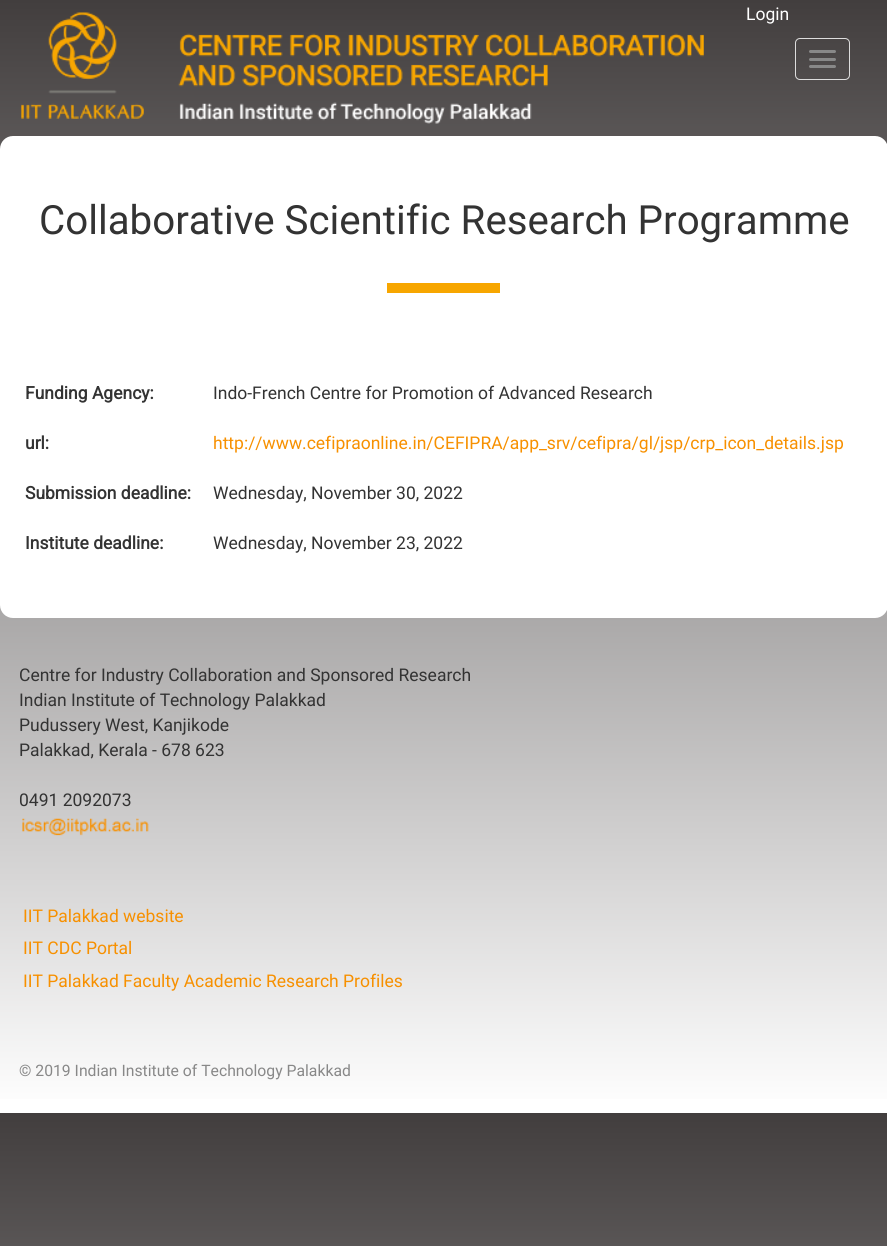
#include <cairo.h>
#include <math.h>
#include <stddef.h>

typedef struct { double x, y; const char *s; } line_t;

static void ink(cairo_t *ctx, unsigned color) {
    cairo_set_source_rgb(ctx, (color >> 16) / 255.0, (color >> 8 & 255) / 255.0, (color & 255) / 255.0);
}

static void round_path(cairo_t *ctx, double x, double y, double w, double h, double r) {
    cairo_new_sub_path(ctx);
    cairo_arc(ctx, x + w - r, y + h - r, r, 0, M_PI / 2);
    cairo_arc(ctx, x + r, y + h - r, r, M_PI / 2, M_PI);
    cairo_arc(ctx, x + r, y + r, r, M_PI, 1.5 * M_PI);
    cairo_arc(ctx, x + w - r, y + r, r, 1.5 * M_PI, 2 * M_PI);
    cairo_close_path(ctx);
}

static void paste(cairo_t *ctx, const char *path, double x, double y, double w, double h) {
    cairo_surface_t *image = cairo_image_surface_create_from_png(path);
    cairo_save(ctx);
    cairo_set_source_surface(ctx, image, x, y);
    cairo_rectangle(ctx, x, y, w, h);
    cairo_fill(ctx);
    cairo_restore(ctx);
    cairo_surface_destroy(image);
}

int main(void) {
    cairo_surface_t *surface = cairo_image_surface_create(CAIRO_FORMAT_RGB24, 887, 1246);
    cairo_t *ctx = cairo_create(surface);
    cairo_font_options_t *options = cairo_font_options_create();
    cairo_font_options_set_hint_metrics(options, CAIRO_HINT_METRICS_OFF);
    cairo_font_options_set_hint_style(options, CAIRO_HINT_STYLE_NONE);
    cairo_set_font_options(ctx, options);
    cairo_set_miter_limit(ctx, 4);
    cairo_pattern_t *gradient;
    ink(ctx, 0xFFFFFF);
    cairo_paint(ctx);
    gradient = cairo_pattern_create_linear(444, 0, 444, 1113);
    cairo_pattern_add_color_stop_rgba(gradient, 0, 0.259, 0.243, 0.243, 1);
    cairo_pattern_add_color_stop_rgba(gradient, 1, 1, 1, 1, 1);
    cairo_set_source(ctx, gradient);
    cairo_pattern_destroy(gradient);
    cairo_rectangle(ctx, 0, 0, 887, 1099);
    cairo_fill(ctx);
    gradient = cairo_pattern_create_linear(444, 1113, 444, 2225);
    cairo_pattern_add_color_stop_rgba(gradient, 0, 0.259, 0.243, 0.243, 1);
    cairo_pattern_add_color_stop_rgba(gradient, 1, 1, 1, 1, 1);
    cairo_set_source(ctx, gradient);
    cairo_pattern_destroy(gradient);
    cairo_rectangle(ctx, 0, 1113, 887, 133);
    cairo_fill(ctx);
    paste(ctx, "media/1.png", 21, 12, 683, 112);
    cairo_select_font_face(ctx, "Roboto", CAIRO_FONT_SLANT_NORMAL, CAIRO_FONT_WEIGHT_NORMAL);
    cairo_set_font_size(ctx, 17.5);
    ink(ctx, 0xFFFFFF);
    cairo_move_to(ctx, 746, 20);
    cairo_show_text(ctx, "Login");
    round_path(ctx, 795.5, 38.5, 54, 41, 4.5);
    ink(ctx, 0xDDDDDD);
    cairo_set_line_width(ctx, 1);
    cairo_stroke(ctx);
    ink(ctx, 0x888888);
    round_path(ctx, 809, 50, 27, 3, 1.5);
    cairo_fill(ctx);
    round_path(ctx, 809, 58, 27, 3, 1.5);
    cairo_fill(ctx);
    round_path(ctx, 809, 65, 27, 3, 1.5);
    cairo_fill(ctx);
    ink(ctx, 0xFFFFFF);
    round_path(ctx, 0, 136, 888, 482, 13);
    cairo_fill(ctx);
    ink(ctx, 0xF7A600);
    cairo_rectangle(ctx, 387, 283, 113, 10);
    cairo_fill(ctx);
    cairo_set_font_size(ctx, 40.25);
    ink(ctx, 0x333333);
    cairo_move_to(ctx, 39, 234);
    cairo_show_text(ctx, "Collaborative Scientific Research Programme");
    cairo_select_font_face(ctx, "Roboto", CAIRO_FONT_SLANT_NORMAL, CAIRO_FONT_WEIGHT_BOLD);
    cairo_set_font_size(ctx, 17.5);
    cairo_move_to(ctx, 25, 399);
    cairo_show_text(ctx, "Funding Agency:");
    cairo_select_font_face(ctx, "Roboto", CAIRO_FONT_SLANT_NORMAL, CAIRO_FONT_WEIGHT_NORMAL);
    cairo_move_to(ctx, 213, 399);
    cairo_show_text(ctx, "Indo-French Centre for Promotion of Advanced Research");
    cairo_select_font_face(ctx, "Roboto", CAIRO_FONT_SLANT_NORMAL, CAIRO_FONT_WEIGHT_BOLD);
    cairo_move_to(ctx, 25, 449);
    cairo_show_text(ctx, "url:");
    cairo_select_font_face(ctx, "Roboto", CAIRO_FONT_SLANT_NORMAL, CAIRO_FONT_WEIGHT_NORMAL);
    ink(ctx, 0xF79000);
    cairo_move_to(ctx, 213, 449);
    cairo_show_text(ctx, "http://www.cefipraonline.in/CEFIPRA/app_srv/cefipra/gl/jsp/crp_icon_details.jsp");
    cairo_select_font_face(ctx, "Roboto", CAIRO_FONT_SLANT_NORMAL, CAIRO_FONT_WEIGHT_BOLD);
    ink(ctx, 0x333333);
    cairo_move_to(ctx, 25, 499);
    cairo_show_text(ctx, "Submission deadline:");
    cairo_select_font_face(ctx, "Roboto", CAIRO_FONT_SLANT_NORMAL, CAIRO_FONT_WEIGHT_NORMAL);
    cairo_move_to(ctx, 213, 499);
    cairo_show_text(ctx, "Wednesday, November 30, 2022");
    cairo_select_font_face(ctx, "Roboto", CAIRO_FONT_SLANT_NORMAL, CAIRO_FONT_WEIGHT_BOLD);
    cairo_move_to(ctx, 25, 549);
    cairo_show_text(ctx, "Institute deadline:");
    cairo_select_font_face(ctx, "Roboto", CAIRO_FONT_SLANT_NORMAL, CAIRO_FONT_WEIGHT_NORMAL);
    {
        static const line_t items[] = {
            {213, 549, "Wednesday, November 23, 2022"},
            {19, 681, "Centre for Industry Collaboration and Sponsored Research"},
            {19, 706, "Indian Institute of Technology Palakkad"},
            {19, 731, "Pudussery West, Kanjikode"},
            {19, 756, "Palakkad, Kerala - 678 623"},
            {19, 806, "0491 2092073"},
        };
        for (size_t i = 0; i < sizeof items / sizeof *items; i++) {
            cairo_move_to(ctx, items[i].x, items[i].y);
            cairo_show_text(ctx, items[i].s);
        }
    }
    paste(ctx, "media/2.png", 22, 818, 127, 18);
    ink(ctx, 0xF79000);
    {
        static const line_t items[] = {
            {23, 922, "IIT Palakkad website"},
            {23, 954, "IIT CDC Portal"},
            {23, 987, "IIT Palakkad Faculty Academic Research Profiles"},
        };
        for (size_t i = 0; i < sizeof items / sizeof *items; i++) {
            cairo_move_to(ctx, items[i].x, items[i].y);
            cairo_show_text(ctx, items[i].s);
        }
    }
    cairo_set_font_size(ctx, 15.75);
    ink(ctx, 0x888888);
    cairo_move_to(ctx, 19, 1076);
    cairo_show_text(ctx, "© 2019 Indian Institute of Technology Palakkad");
    cairo_surface_write_to_png(surface, "image.png");
    cairo_font_options_destroy(options);
    cairo_destroy(ctx);
    cairo_surface_destroy(surface);
    return 0;
}
